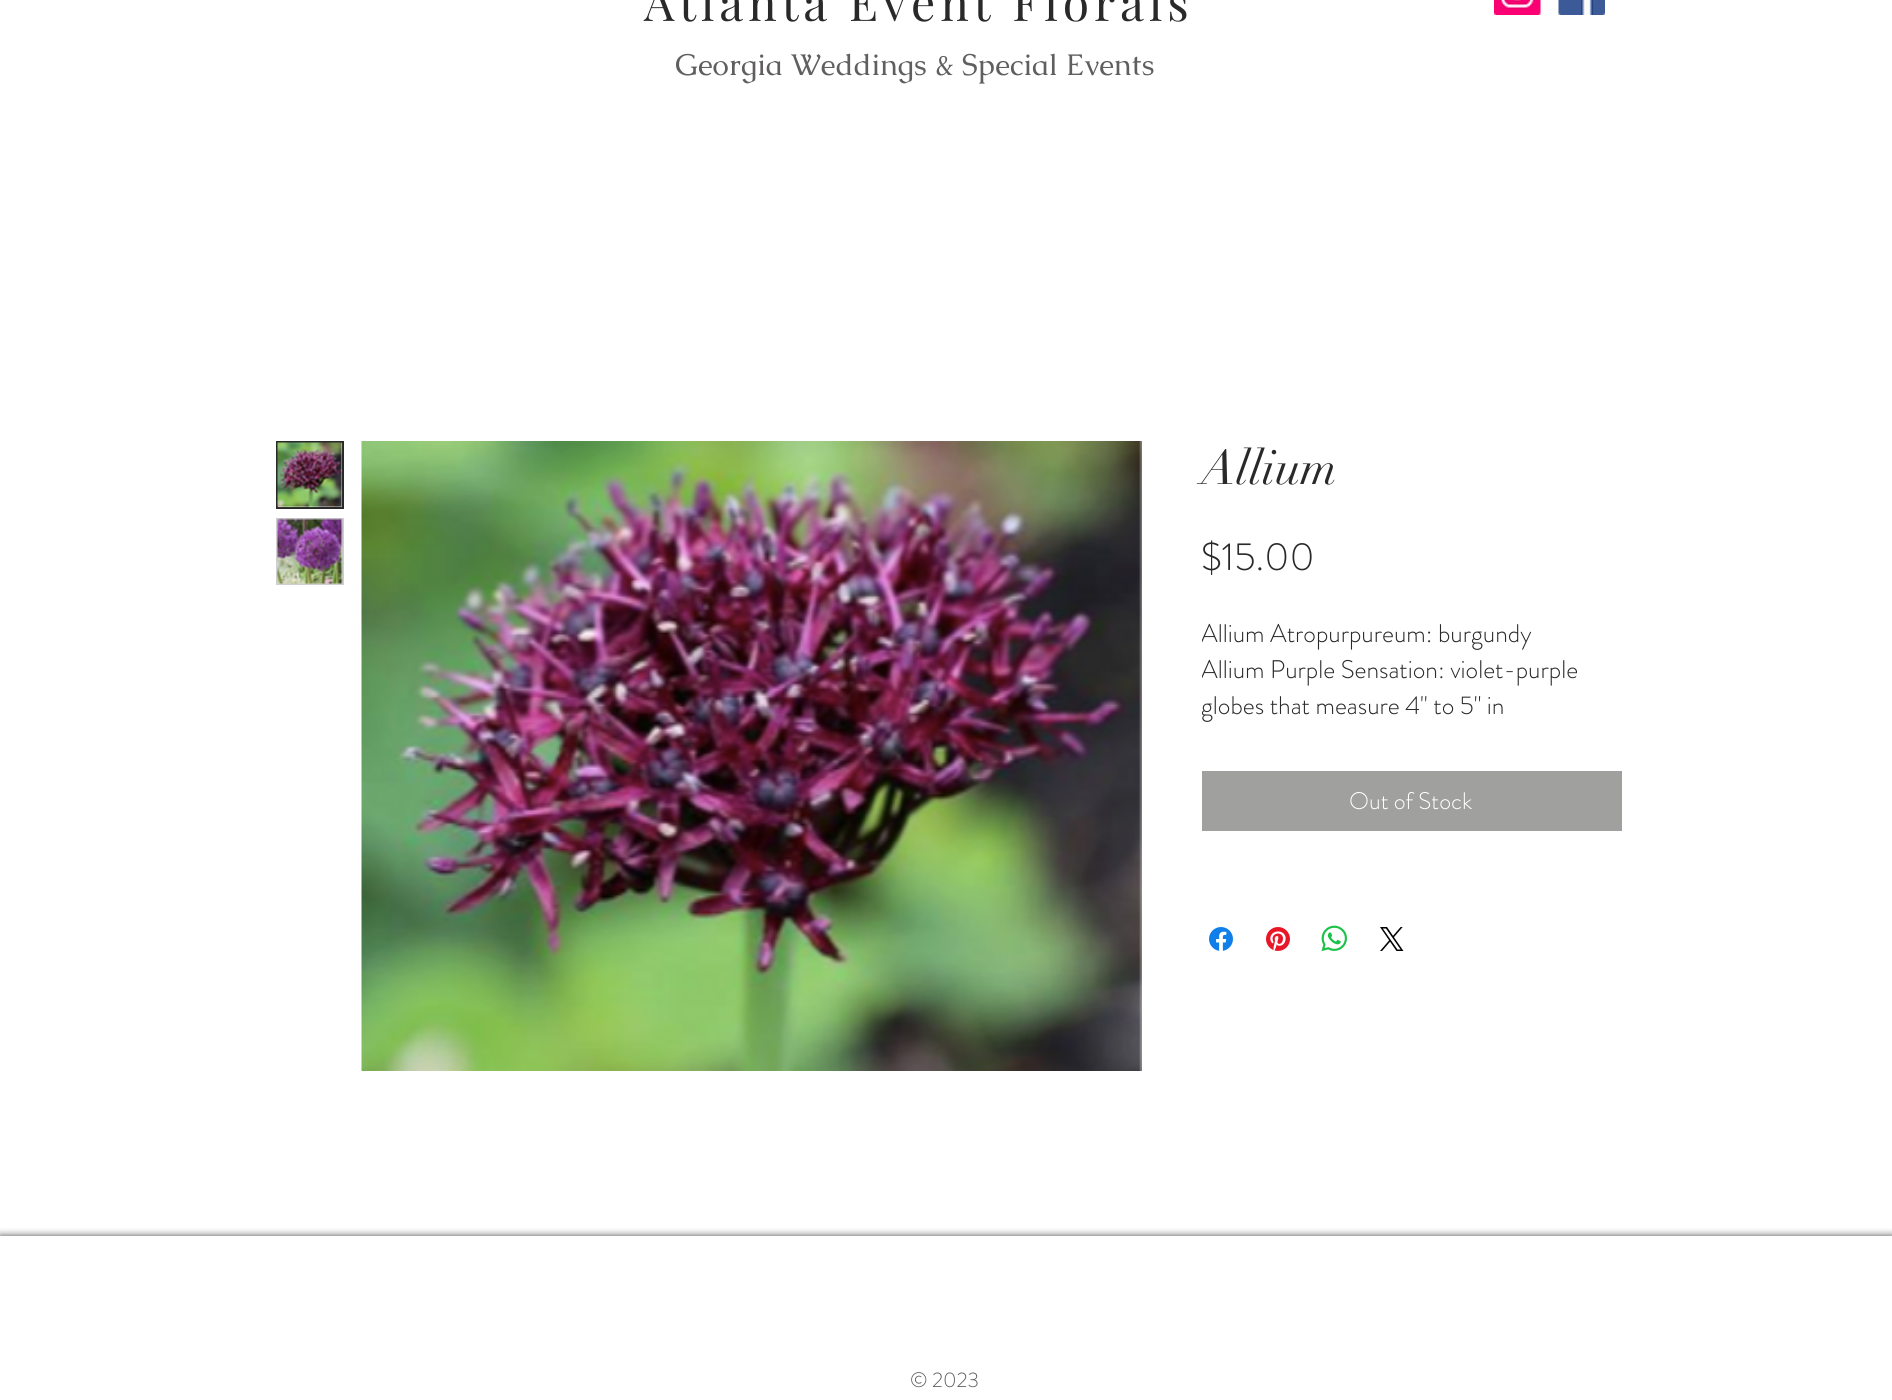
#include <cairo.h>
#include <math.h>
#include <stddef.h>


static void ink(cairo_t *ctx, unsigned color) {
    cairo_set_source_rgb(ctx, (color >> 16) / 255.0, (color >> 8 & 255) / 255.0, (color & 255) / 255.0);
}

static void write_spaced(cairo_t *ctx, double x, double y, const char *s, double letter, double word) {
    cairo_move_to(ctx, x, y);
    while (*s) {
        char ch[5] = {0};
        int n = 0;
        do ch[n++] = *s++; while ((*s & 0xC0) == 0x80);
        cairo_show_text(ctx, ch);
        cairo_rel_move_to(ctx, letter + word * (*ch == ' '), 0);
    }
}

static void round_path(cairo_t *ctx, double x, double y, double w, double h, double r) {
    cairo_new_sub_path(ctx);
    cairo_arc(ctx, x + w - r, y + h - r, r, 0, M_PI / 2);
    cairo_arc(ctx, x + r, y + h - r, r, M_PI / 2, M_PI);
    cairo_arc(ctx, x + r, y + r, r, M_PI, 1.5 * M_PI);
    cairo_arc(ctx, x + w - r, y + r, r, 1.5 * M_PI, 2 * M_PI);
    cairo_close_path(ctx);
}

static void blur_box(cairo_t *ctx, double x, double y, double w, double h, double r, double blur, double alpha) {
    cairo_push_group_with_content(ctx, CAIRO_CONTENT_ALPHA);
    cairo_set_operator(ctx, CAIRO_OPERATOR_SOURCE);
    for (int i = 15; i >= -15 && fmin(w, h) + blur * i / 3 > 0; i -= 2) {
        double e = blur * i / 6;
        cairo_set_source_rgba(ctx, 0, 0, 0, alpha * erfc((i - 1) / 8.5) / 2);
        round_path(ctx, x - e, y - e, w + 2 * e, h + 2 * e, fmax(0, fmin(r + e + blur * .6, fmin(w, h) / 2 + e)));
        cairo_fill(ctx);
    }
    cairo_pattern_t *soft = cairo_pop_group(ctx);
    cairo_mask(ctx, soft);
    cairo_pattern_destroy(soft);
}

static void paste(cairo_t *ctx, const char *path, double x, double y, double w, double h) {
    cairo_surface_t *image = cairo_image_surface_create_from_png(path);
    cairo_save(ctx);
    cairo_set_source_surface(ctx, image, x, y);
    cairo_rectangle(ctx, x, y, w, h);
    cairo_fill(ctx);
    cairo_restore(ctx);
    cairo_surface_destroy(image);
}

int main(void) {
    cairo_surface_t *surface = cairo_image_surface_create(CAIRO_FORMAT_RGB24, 1892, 1400);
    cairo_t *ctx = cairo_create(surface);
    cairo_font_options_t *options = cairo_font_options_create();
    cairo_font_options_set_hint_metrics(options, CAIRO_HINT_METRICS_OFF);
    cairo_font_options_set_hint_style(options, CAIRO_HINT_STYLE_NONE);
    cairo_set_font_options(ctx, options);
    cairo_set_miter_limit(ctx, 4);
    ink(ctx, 0xFFFFFF);
    cairo_paint(ctx);
    cairo_select_font_face(ctx, "Playfair Display", CAIRO_FONT_SLANT_NORMAL, CAIRO_FONT_WEIGHT_NORMAL);
    cairo_set_font_size(ctx, 48);
    ink(ctx, 0x292929);
    write_spaced(ctx, 644, 21, "Atlanta Event Florals", 4.8, 0);
    paste(ctx, "media/1.png", 1494, 0, 47, 15);
    paste(ctx, "media/2.png", 1558, 0, 47, 15);
    cairo_select_font_face(ctx, "Caudex", CAIRO_FONT_SLANT_NORMAL, CAIRO_FONT_WEIGHT_NORMAL);
    cairo_set_font_size(ctx, 30);
    ink(ctx, 0x605E5E);
    cairo_move_to(ctx, 675, 75);
    cairo_show_text(ctx, "Georgia Weddings & Special Events");
    cairo_rectangle(ctx, 277, 442, 66, 66);
    ink(ctx, 0x292929);
    cairo_stroke(ctx);
    paste(ctx, "media/3.png", 277, 442, 66, 66);
    cairo_rectangle(ctx, 277, 519, 66, 65);
    ink(ctx, 0xCFCFCF);
    cairo_stroke(ctx);
    paste(ctx, "media/4.png", 277, 518, 66, 66);
    paste(ctx, "media/5.png", 361, 441, 781, 630);
    cairo_select_font_face(ctx, "didot", CAIRO_FONT_SLANT_NORMAL, CAIRO_FONT_WEIGHT_NORMAL);
    cairo_set_font_size(ctx, 48);
    ink(ctx, 0x292929);
    cairo_move_to(ctx, 1201, 484);
    cairo_show_text(ctx, "Allium");
    cairo_select_font_face(ctx, "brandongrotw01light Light", CAIRO_FONT_SLANT_NORMAL, CAIRO_FONT_WEIGHT_NORMAL);
    cairo_set_font_size(ctx, 39);
    cairo_move_to(ctx, 1201, 570);
    cairo_show_text(ctx, "$15.00");
    cairo_save(ctx);
    cairo_rectangle(ctx, 1202, 615, 420, 108);
    cairo_clip(ctx);
    cairo_set_font_size(ctx, 25.5);
    cairo_move_to(ctx, 1201, 642);
    cairo_show_text(ctx, "Allium Atropurpureum: burgundy");
    cairo_move_to(ctx, 1201, 678);
    cairo_show_text(ctx, "Allium Purple Sensation: violet-purple");
    cairo_restore(ctx);
    cairo_set_font_size(ctx, 25.5);
    cairo_move_to(ctx, 1201, 714);
    cairo_show_text(ctx, "globes that measure 4\" to 5\" in");
    ink(ctx, 0xA0A09F);
    cairo_rectangle(ctx, 1202, 771, 420, 60);
    cairo_fill(ctx);
    cairo_set_font_size(ctx, 24);
    ink(ctx, 0xFFFFFF);
    cairo_move_to(ctx, 1349, 809);
    cairo_show_text(ctx, "Out of Stock");
    paste(ctx, "media/6.png", 1209, 927, 24, 24);
    paste(ctx, "media/7.png", 1266, 927, 24, 24);
    paste(ctx, "media/8.png", 1321, 925, 26, 27);
    paste(ctx, "media/9.png", 1380, 927, 24, 24);
    cairo_save(ctx);
    cairo_rectangle(ctx, 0, 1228, 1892, 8);
    cairo_clip(ctx);
    ink(ctx, 0x000000);
    blur_box(ctx, 0, 1236, 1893, 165, 0, 4, 0.7);
    cairo_restore(ctx);
    cairo_set_font_size(ctx, 21);
    ink(ctx, 0x605E5E);
    cairo_move_to(ctx, 910, 1387);
    cairo_show_text(ctx, "© 2023");
    cairo_surface_write_to_png(surface, "image.png");
    cairo_font_options_destroy(options);
    cairo_destroy(ctx);
    cairo_surface_destroy(surface);
    return 0;
}
